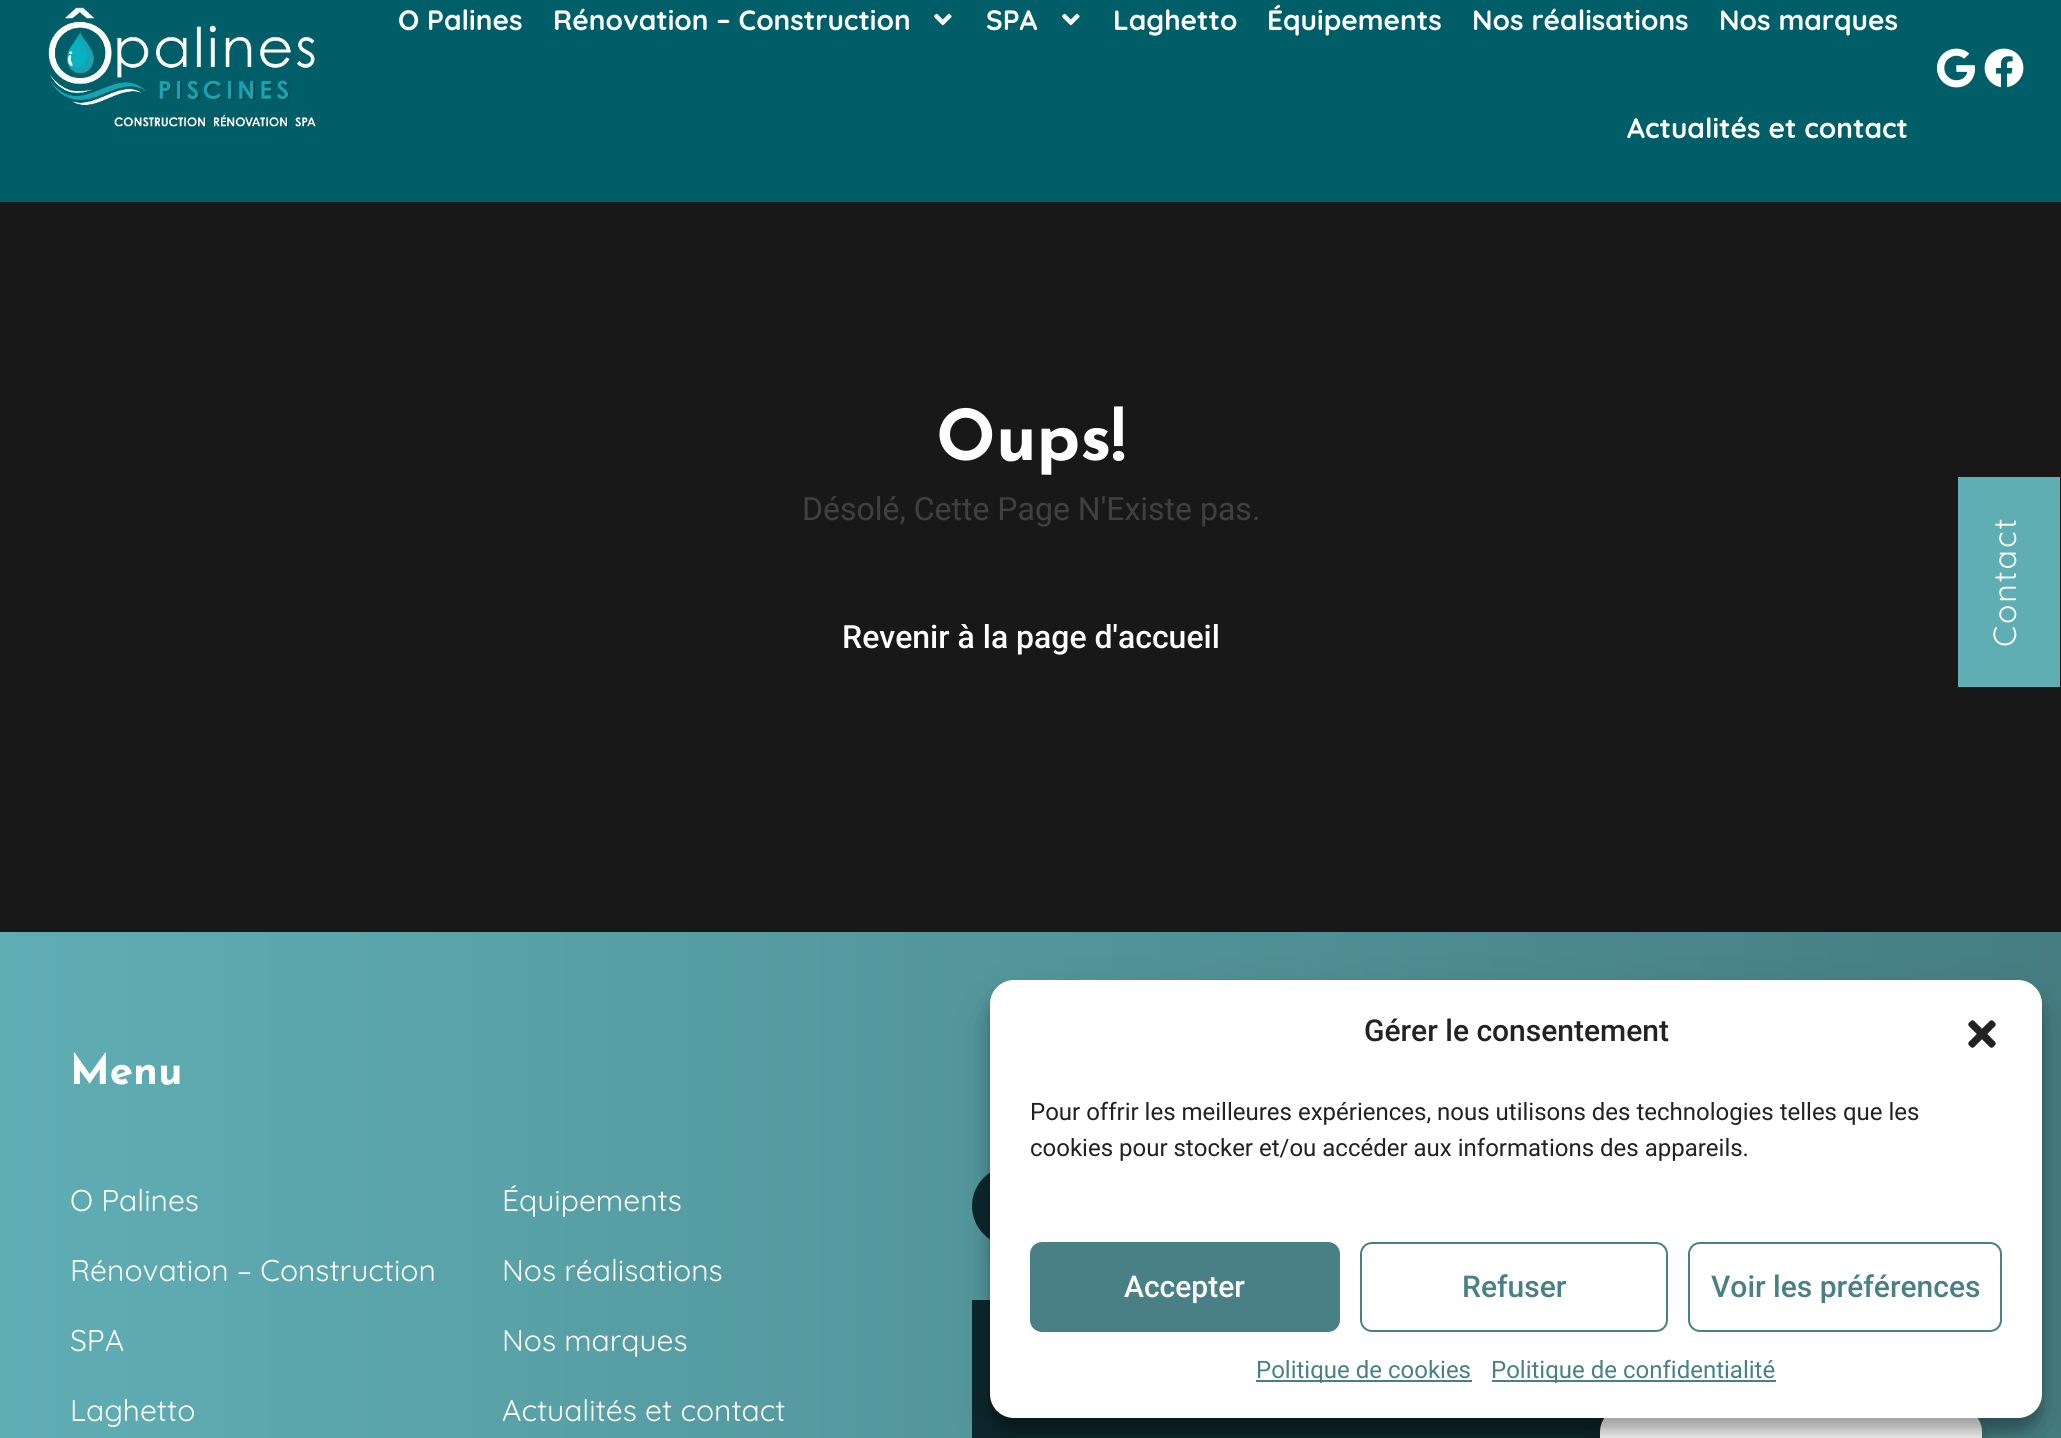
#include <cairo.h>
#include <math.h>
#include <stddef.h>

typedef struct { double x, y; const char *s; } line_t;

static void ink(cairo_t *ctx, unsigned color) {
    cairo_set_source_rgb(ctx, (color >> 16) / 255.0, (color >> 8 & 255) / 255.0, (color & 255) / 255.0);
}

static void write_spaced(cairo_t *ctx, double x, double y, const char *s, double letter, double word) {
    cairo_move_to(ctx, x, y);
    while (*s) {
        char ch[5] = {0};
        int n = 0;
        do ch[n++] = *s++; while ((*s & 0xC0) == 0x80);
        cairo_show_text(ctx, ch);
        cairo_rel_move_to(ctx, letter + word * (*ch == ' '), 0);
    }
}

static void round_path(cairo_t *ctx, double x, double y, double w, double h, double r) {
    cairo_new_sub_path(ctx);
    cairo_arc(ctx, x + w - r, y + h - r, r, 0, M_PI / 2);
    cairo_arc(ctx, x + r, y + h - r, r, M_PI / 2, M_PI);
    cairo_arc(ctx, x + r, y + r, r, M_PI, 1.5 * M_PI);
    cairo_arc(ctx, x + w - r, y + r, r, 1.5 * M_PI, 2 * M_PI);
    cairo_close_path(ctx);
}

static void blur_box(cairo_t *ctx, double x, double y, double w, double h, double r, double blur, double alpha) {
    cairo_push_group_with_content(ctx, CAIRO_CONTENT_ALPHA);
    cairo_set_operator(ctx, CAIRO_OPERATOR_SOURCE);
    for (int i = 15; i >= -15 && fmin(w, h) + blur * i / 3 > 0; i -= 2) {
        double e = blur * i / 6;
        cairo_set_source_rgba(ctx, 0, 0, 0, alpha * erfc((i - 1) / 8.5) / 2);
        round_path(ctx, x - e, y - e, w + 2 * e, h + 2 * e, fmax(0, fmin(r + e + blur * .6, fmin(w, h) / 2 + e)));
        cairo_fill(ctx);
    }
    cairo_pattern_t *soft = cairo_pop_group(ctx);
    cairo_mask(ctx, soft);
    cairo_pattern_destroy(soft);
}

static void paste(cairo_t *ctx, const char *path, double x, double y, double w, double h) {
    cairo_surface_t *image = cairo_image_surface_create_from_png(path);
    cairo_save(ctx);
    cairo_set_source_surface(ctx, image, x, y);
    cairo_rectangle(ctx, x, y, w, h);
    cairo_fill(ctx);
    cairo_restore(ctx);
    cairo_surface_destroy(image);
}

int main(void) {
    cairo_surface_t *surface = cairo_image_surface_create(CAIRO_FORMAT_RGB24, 2061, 1438);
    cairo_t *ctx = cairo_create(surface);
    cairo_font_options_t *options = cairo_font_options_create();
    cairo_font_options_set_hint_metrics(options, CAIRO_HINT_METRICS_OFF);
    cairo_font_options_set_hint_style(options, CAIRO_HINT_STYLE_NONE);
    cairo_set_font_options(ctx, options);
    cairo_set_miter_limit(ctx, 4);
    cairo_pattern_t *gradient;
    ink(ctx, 0x171817);
    cairo_paint(ctx);
    ink(ctx, 0x005E68);
    cairo_rectangle(ctx, 0, 0, 2061, 202);
    cairo_fill(ctx);
    paste(ctx, "media/1.png", 48, 7, 268, 120);
    cairo_select_font_face(ctx, "Quicksand", CAIRO_FONT_SLANT_NORMAL, CAIRO_FONT_WEIGHT_BOLD);
    cairo_set_font_size(ctx, 28);
    ink(ctx, 0xFFFFFF);
    cairo_move_to(ctx, 398, 30);
    cairo_show_text(ctx, "O Palines");
    cairo_move_to(ctx, 553, 30);
    cairo_show_text(ctx, "Rénovation – Construction");
    paste(ctx, "media/2.png", 934, 13, 18, 13);
    cairo_move_to(ctx, 986, 30);
    cairo_show_text(ctx, "SPA");
    paste(ctx, "media/2.png", 1062, 13, 18, 13);
    {
        static const line_t items[] = {
            {1113, 30, "Laghetto"},
            {1267, 30, "Équipements"},
            {1472, 30, "Nos réalisations"},
            {1719, 30, "Nos marques"},
            {1627, 138, "Actualités et contact"},
        };
        for (size_t i = 0; i < sizeof items / sizeof *items; i++) {
            cairo_move_to(ctx, items[i].x, items[i].y);
            cairo_show_text(ctx, items[i].s);
        }
    }
    paste(ctx, "media/3.png", 1936, 48, 40, 40);
    paste(ctx, "media/4.png", 1984, 48, 40, 40);
    cairo_select_font_face(ctx, "Josefin Sans", CAIRO_FONT_SLANT_NORMAL, CAIRO_FONT_WEIGHT_BOLD);
    cairo_set_font_size(ctx, 70);
    cairo_move_to(ctx, 936, 460);
    cairo_show_text(ctx, "Oups!");
    cairo_select_font_face(ctx, "Roboto", CAIRO_FONT_SLANT_NORMAL, CAIRO_FONT_WEIGHT_NORMAL);
    cairo_set_font_size(ctx, 32);
    ink(ctx, 0x404040);
    cairo_move_to(ctx, 802, 520);
    cairo_show_text(ctx, "Désolé, Cette Page N'Existe pas.");
    cairo_select_font_face(ctx, "Roboto Medium", CAIRO_FONT_SLANT_NORMAL, CAIRO_FONT_WEIGHT_NORMAL);
    ink(ctx, 0xFFFFFF);
    cairo_move_to(ctx, 842, 648);
    cairo_show_text(ctx, "Revenir à la page d'accueil");
    ink(ctx, 0x5FAEB4);
    cairo_rectangle(ctx, 1958, 477, 102, 210);
    cairo_fill(ctx);
    cairo_select_font_face(ctx, "Quicksand", CAIRO_FONT_SLANT_NORMAL, CAIRO_FONT_WEIGHT_NORMAL);
    ink(ctx, 0xFFFFFF);
    cairo_save(ctx);
    cairo_translate(ctx, 2016, 647);
    cairo_rotate(ctx, -90 * M_PI / 180);
    write_spaced(ctx, 0, 0, "Contact", 2, 0);
    cairo_restore(ctx);
    gradient = cairo_pattern_create_linear(0, 1396, 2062, 1396);
    cairo_pattern_add_color_stop_rgba(gradient, 0, 0.373, 0.682, 0.706, 1);
    cairo_pattern_add_color_stop_rgba(gradient, 1, 0.271, 0.49, 0.51, 1);
    cairo_set_source(ctx, gradient);
    cairo_pattern_destroy(gradient);
    cairo_rectangle(ctx, 0, 932, 2061, 506);
    cairo_fill(ctx);
    cairo_select_font_face(ctx, "Josefin Sans", CAIRO_FONT_SLANT_NORMAL, CAIRO_FONT_WEIGHT_BOLD);
    cairo_set_font_size(ctx, 42);
    ink(ctx, 0xFFFFFF);
    cairo_move_to(ctx, 70, 1084);
    cairo_show_text(ctx, "Menu");
    cairo_select_font_face(ctx, "Quicksand", CAIRO_FONT_SLANT_NORMAL, CAIRO_FONT_WEIGHT_NORMAL);
    cairo_set_font_size(ctx, 30);
    {
        static const line_t items[] = {
            {70, 1211, "O Palines"},
            {502, 1211, "Équipements"},
            {70, 1281, "Rénovation – Construction"},
            {502, 1281, "Nos réalisations"},
            {70, 1351, "SPA"},
            {502, 1351, "Nos marques"},
            {70, 1421, "Laghetto"},
            {502, 1421, "Actualités et contact"},
        };
        for (size_t i = 0; i < sizeof items / sizeof *items; i++) {
            cairo_move_to(ctx, items[i].x, items[i].y);
            cairo_show_text(ctx, items[i].s);
        }
    }
    ink(ctx, 0x0D272D);
    cairo_new_path(ctx);
    cairo_arc(ctx, 1012, 1206, 40, 0, 2 * M_PI);
    cairo_fill(ctx);
    cairo_rectangle(ctx, 972, 1300, 633, 138);
    cairo_fill(ctx);
    ink(ctx, 0x000000);
    blur_box(ctx, 1600, 1420, 382, 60, 24, 6, 0.23);
    blur_box(ctx, 1600, 1428, 382, 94, 24, 20, 0.19);
    ink(ctx, 0xFFFFFF);
    cairo_new_path(ctx);
    cairo_move_to(ctx, 1624, 1408);
    cairo_line_to(ctx, 1958, 1408);
    cairo_curve_to(ctx, 1971.5, 1408, 1982, 1418.5, 1982, 1432);
    cairo_line_to(ctx, 1982, 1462);
    cairo_line_to(ctx, 1600, 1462);
    cairo_line_to(ctx, 1600, 1432);
    cairo_curve_to(ctx, 1600, 1418.5, 1610.5, 1408, 1624, 1408);
    cairo_close_path(ctx);
    cairo_fill(ctx);
    ink(ctx, 0x000000);
    blur_box(ctx, 990, 992, 1052, 438, 24, 6, 0.23);
    blur_box(ctx, 990, 1000, 1052, 438, 24, 20, 0.19);
    ink(ctx, 0xFFFFFF);
    round_path(ctx, 990, 980, 1052, 438, 24);
    cairo_fill(ctx);
    cairo_select_font_face(ctx, "Roboto Medium", CAIRO_FONT_SLANT_NORMAL, CAIRO_FONT_WEIGHT_NORMAL);
    ink(ctx, 0x222222);
    cairo_move_to(ctx, 1364, 1041);
    cairo_show_text(ctx, "Gérer le consentement");
    paste(ctx, "media/5.png", 1968, 1020, 28, 28);
    cairo_select_font_face(ctx, "Roboto", CAIRO_FONT_SLANT_NORMAL, CAIRO_FONT_WEIGHT_NORMAL);
    cairo_set_font_size(ctx, 24);
    cairo_move_to(ctx, 1030, 1120);
    cairo_show_text(ctx, "Pour offrir les meilleures expériences, nous utilisons des technologies telles que les");
    cairo_move_to(ctx, 1030, 1156);
    cairo_show_text(ctx, "cookies pour stocker et/ou accéder aux informations des appareils.");
    ink(ctx, 0x498085);
    round_path(ctx, 1031, 1243, 308, 88, 11);
    cairo_fill_preserve(ctx);
    cairo_stroke(ctx);
    cairo_select_font_face(ctx, "Roboto Medium", CAIRO_FONT_SLANT_NORMAL, CAIRO_FONT_WEIGHT_NORMAL);
    cairo_set_font_size(ctx, 30);
    ink(ctx, 0xFFFFFF);
    cairo_move_to(ctx, 1124, 1297);
    cairo_show_text(ctx, "Accepter");
    round_path(ctx, 1361, 1243, 306, 88, 11);
    ink(ctx, 0x498085);
    cairo_stroke(ctx);
    cairo_move_to(ctx, 1462, 1297);
    cairo_show_text(ctx, "Refuser");
    round_path(ctx, 1689, 1243, 312, 88, 11);
    cairo_stroke(ctx);
    cairo_move_to(ctx, 1711, 1297);
    cairo_show_text(ctx, "Voir les préférences");
    cairo_rectangle(ctx, 1256, 1380, 216, 2);
    cairo_fill(ctx);
    cairo_select_font_face(ctx, "Roboto", CAIRO_FONT_SLANT_NORMAL, CAIRO_FONT_WEIGHT_NORMAL);
    cairo_set_font_size(ctx, 24);
    cairo_move_to(ctx, 1256, 1378);
    cairo_show_text(ctx, "Politique de cookies");
    cairo_rectangle(ctx, 1492, 1380, 284, 2);
    cairo_fill(ctx);
    cairo_move_to(ctx, 1491, 1378);
    cairo_show_text(ctx, "Politique de confidentialité");
    cairo_surface_write_to_png(surface, "image.png");
    cairo_font_options_destroy(options);
    cairo_destroy(ctx);
    cairo_surface_destroy(surface);
    return 0;
}
